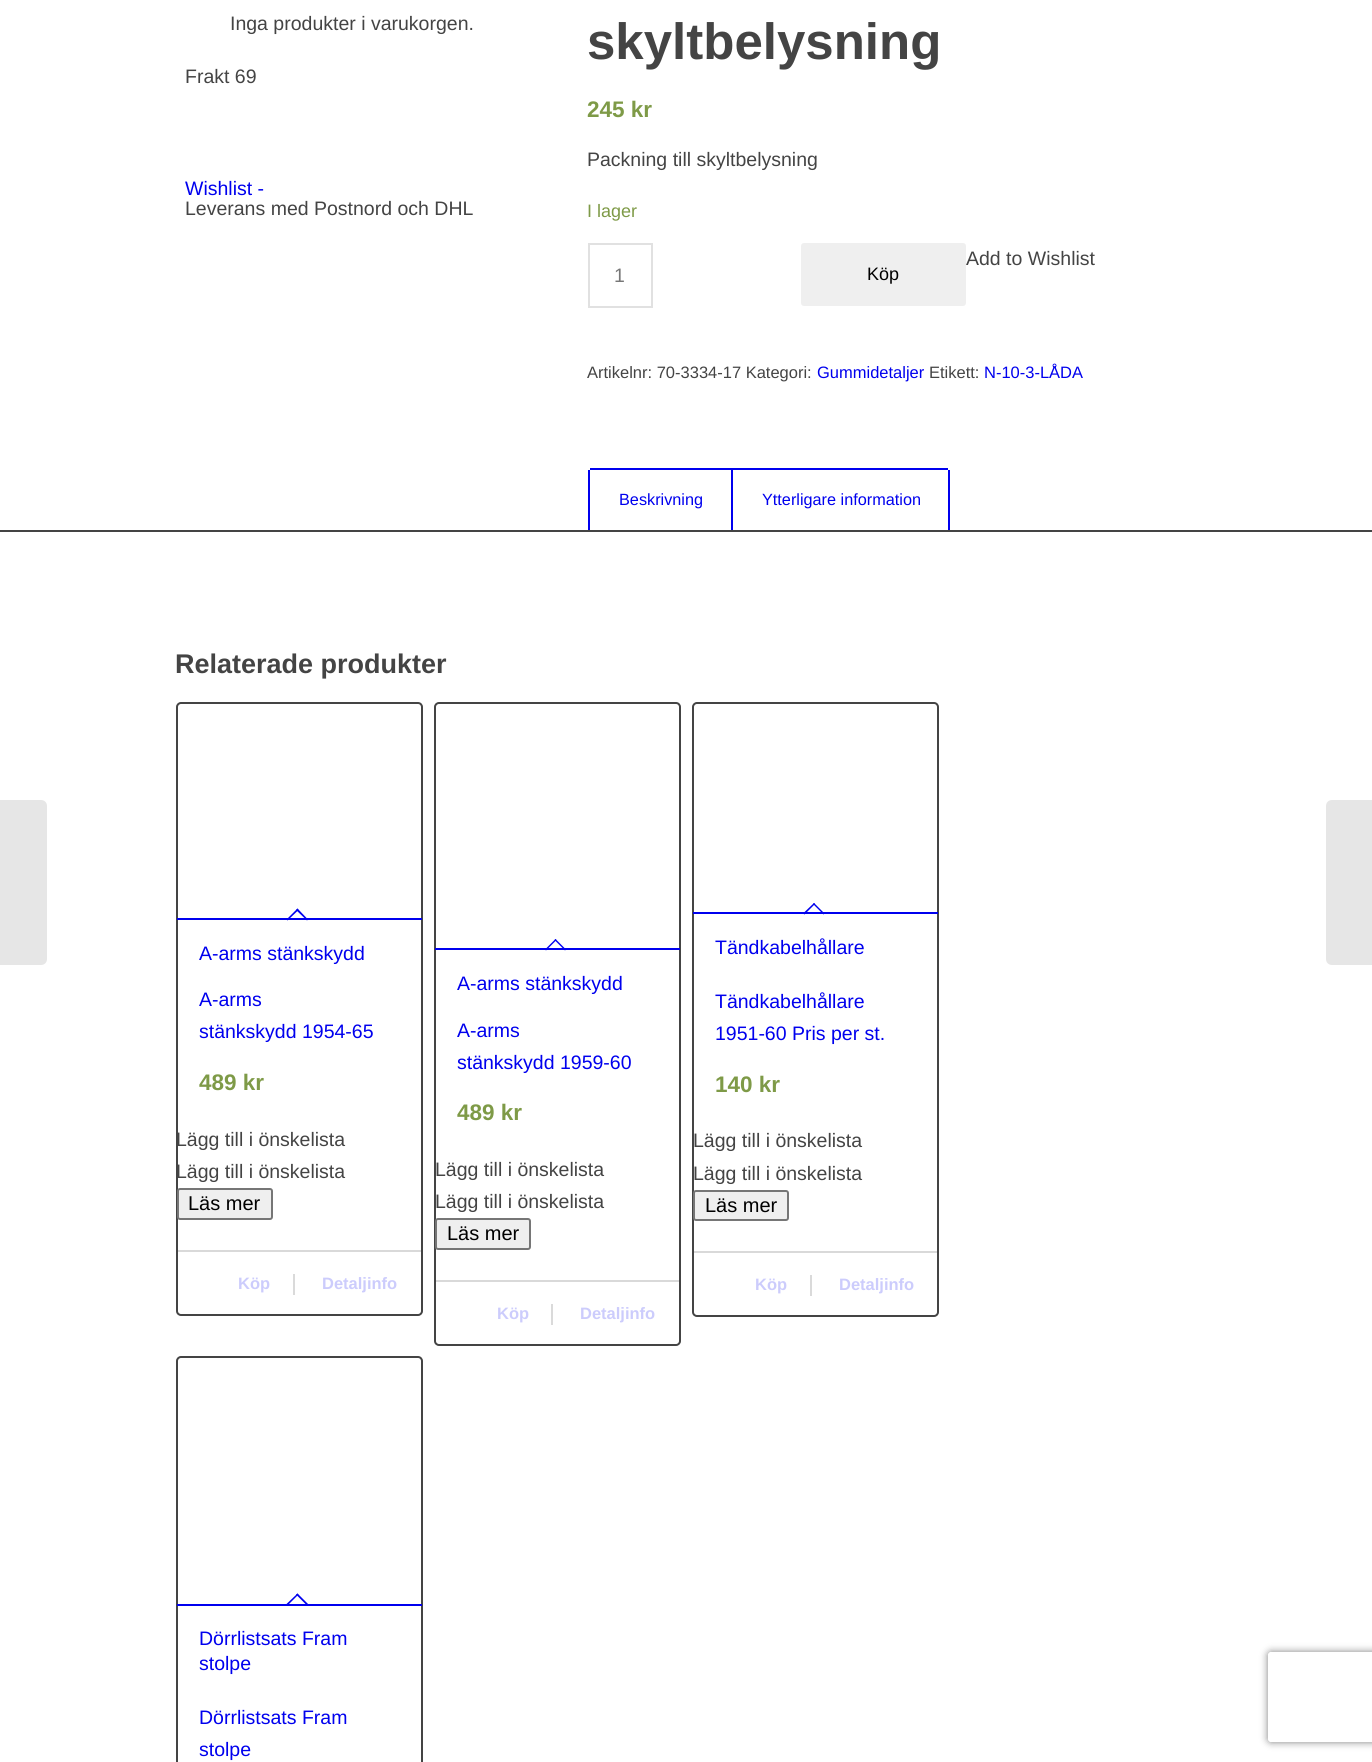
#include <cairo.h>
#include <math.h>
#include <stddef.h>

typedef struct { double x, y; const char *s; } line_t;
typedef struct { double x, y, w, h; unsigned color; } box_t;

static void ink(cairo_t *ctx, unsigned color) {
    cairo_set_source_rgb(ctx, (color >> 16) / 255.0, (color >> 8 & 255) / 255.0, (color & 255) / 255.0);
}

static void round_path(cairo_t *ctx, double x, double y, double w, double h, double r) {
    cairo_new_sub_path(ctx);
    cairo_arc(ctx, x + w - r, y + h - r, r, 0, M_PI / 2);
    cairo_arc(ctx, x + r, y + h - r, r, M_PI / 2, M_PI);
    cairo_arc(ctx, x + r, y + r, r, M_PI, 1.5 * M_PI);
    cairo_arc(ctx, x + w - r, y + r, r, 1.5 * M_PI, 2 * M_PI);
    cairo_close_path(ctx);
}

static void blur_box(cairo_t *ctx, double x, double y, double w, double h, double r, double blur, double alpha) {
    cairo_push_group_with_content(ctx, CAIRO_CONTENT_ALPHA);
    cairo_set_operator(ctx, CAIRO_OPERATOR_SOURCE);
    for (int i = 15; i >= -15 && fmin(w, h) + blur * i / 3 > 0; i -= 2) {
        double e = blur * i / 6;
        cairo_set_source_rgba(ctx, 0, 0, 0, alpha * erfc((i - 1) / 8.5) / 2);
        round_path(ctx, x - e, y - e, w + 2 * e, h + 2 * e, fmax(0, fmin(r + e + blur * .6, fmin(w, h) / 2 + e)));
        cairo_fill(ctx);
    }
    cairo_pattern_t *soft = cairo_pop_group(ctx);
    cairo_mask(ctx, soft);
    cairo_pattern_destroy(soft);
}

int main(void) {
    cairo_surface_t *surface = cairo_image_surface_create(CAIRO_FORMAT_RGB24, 1372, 1762);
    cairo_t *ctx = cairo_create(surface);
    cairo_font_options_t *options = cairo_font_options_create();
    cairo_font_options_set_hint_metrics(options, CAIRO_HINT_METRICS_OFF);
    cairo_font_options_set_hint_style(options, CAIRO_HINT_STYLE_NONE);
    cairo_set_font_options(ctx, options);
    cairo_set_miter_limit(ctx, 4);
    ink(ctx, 0xFFFFFF);
    cairo_paint(ctx);
    cairo_select_font_face(ctx, "Liberation Sans", CAIRO_FONT_SLANT_NORMAL, CAIRO_FONT_WEIGHT_NORMAL);
    cairo_set_font_size(ctx, 19.5);
    ink(ctx, 0x444444);
    cairo_move_to(ctx, 230, 30);
    cairo_show_text(ctx, "Inga produkter i varukorgen.");
    ink(ctx, 0x0000EE);
    cairo_move_to(ctx, 185, 195);
    cairo_show_text(ctx, "Wishlist -");
    ink(ctx, 0x444444);
    cairo_move_to(ctx, 185, 83);
    cairo_show_text(ctx, "Frakt 69");
    cairo_move_to(ctx, 185, 215);
    cairo_show_text(ctx, "Leverans med Postnord och DHL");
    ink(ctx, 0xE6E6E6);
    cairo_new_path(ctx);
    cairo_move_to(ctx, 0, 800);
    cairo_line_to(ctx, 41, 800);
    cairo_curve_to(ctx, 44.5, 800, 47, 802.5, 47, 806);
    cairo_line_to(ctx, 47, 959);
    cairo_curve_to(ctx, 47, 962.5, 44.5, 965, 41, 965);
    cairo_line_to(ctx, 0, 965);
    cairo_close_path(ctx);
    cairo_fill(ctx);
    cairo_select_font_face(ctx, "Liberation Sans", CAIRO_FONT_SLANT_NORMAL, CAIRO_FONT_WEIGHT_BOLD);
    cairo_set_font_size(ctx, 51);
    ink(ctx, 0x444444);
    cairo_move_to(ctx, 587, 59);
    cairo_show_text(ctx, "skyltbelysning");
    cairo_set_font_size(ctx, 22.5);
    ink(ctx, 0x7E9A47);
    cairo_move_to(ctx, 587, 117);
    cairo_show_text(ctx, "245 kr");
    cairo_select_font_face(ctx, "Liberation Sans", CAIRO_FONT_SLANT_NORMAL, CAIRO_FONT_WEIGHT_NORMAL);
    cairo_set_font_size(ctx, 19.5);
    ink(ctx, 0x444444);
    cairo_move_to(ctx, 587, 166);
    cairo_show_text(ctx, "Packning till skyltbelysning");
    cairo_set_font_size(ctx, 18);
    ink(ctx, 0x7E9A47);
    cairo_move_to(ctx, 587, 217);
    cairo_show_text(ctx, "I lager");
    ink(ctx, 0xEFEFEF);
    round_path(ctx, 801, 243, 165, 63, 3);
    cairo_fill(ctx);
    cairo_set_font_size(ctx, 19.5);
    ink(ctx, 0x444444);
    cairo_move_to(ctx, 966, 265);
    cairo_show_text(ctx, "Add to Wishlist");
    cairo_rectangle(ctx, 589, 244, 63, 63);
    ink(ctx, 0xE1E1E1);
    cairo_stroke(ctx);
    ink(ctx, 0x777777);
    cairo_move_to(ctx, 614, 282);
    cairo_show_text(ctx, "1");
    cairo_set_font_size(ctx, 18);
    ink(ctx, 0x000000);
    cairo_move_to(ctx, 867, 280);
    cairo_show_text(ctx, "Köp");
    cairo_set_font_size(ctx, 16.5);
    ink(ctx, 0x444444);
    cairo_move_to(ctx, 587, 378);
    cairo_show_text(ctx, "Artikelnr: 70-3334-17 Kategori:");
    ink(ctx, 0x0000EE);
    cairo_move_to(ctx, 817, 378);
    cairo_show_text(ctx, "Gummidetaljer");
    ink(ctx, 0x444444);
    cairo_move_to(ctx, 929, 378);
    cairo_show_text(ctx, "Etikett:");
    ink(ctx, 0x0000EE);
    cairo_move_to(ctx, 984, 378);
    cairo_show_text(ctx, "N-10-3-LÅDA");
    {
        static const box_t items[] = {
            {590, 468, 142, 2, 0x0000EE},
            {731, 468, 2, 62, 0x0000EE},
            {588, 470, 2, 60, 0x0000EE},
        };
        for (size_t i = 0; i < sizeof items / sizeof *items; i++) {
            ink(ctx, items[i].color);
            cairo_rectangle(ctx, items[i].x, items[i].y, items[i].w, items[i].h);
            cairo_fill(ctx);
        }
    }
    cairo_set_font_size(ctx, 16.25);
    cairo_move_to(ctx, 619, 505);
    cairo_show_text(ctx, "Beskrivning");
    cairo_rectangle(ctx, 731, 468, 217, 2);
    cairo_fill(ctx);
    cairo_rectangle(ctx, 948, 470, 2, 60);
    cairo_fill(ctx);
    cairo_move_to(ctx, 762, 505);
    cairo_show_text(ctx, "Ytterligare information");
    ink(ctx, 0x444444);
    cairo_rectangle(ctx, 0, 530, 1372, 2);
    cairo_fill(ctx);
    cairo_select_font_face(ctx, "Liberation Sans", CAIRO_FONT_SLANT_NORMAL, CAIRO_FONT_WEIGHT_BOLD);
    cairo_set_font_size(ctx, 27);
    cairo_move_to(ctx, 175, 673);
    cairo_show_text(ctx, "Relaterade produkter");
    round_path(ctx, 177, 703, 245, 612, 4);
    cairo_stroke(ctx);
    ink(ctx, 0x0000EE);
    cairo_rectangle(ctx, 177, 918, 245, 2);
    cairo_fill(ctx);
    cairo_new_path(ctx);
    cairo_move_to(ctx, 297.5, 908.5);
    cairo_line_to(ctx, 308, 919.5);
    cairo_line_to(ctx, 307, 920.5);
    cairo_line_to(ctx, 296, 910);
    cairo_close_path(ctx);
    cairo_fill(ctx);
    cairo_new_path(ctx);
    cairo_move_to(ctx, 297.5, 908.5);
    cairo_line_to(ctx, 298.5, 910);
    cairo_line_to(ctx, 287.5, 920.5);
    cairo_line_to(ctx, 286.5, 919.5);
    cairo_close_path(ctx);
    cairo_fill(ctx);
    cairo_select_font_face(ctx, "Liberation Sans", CAIRO_FONT_SLANT_NORMAL, CAIRO_FONT_WEIGHT_NORMAL);
    cairo_set_font_size(ctx, 19.5);
    {
        static const line_t items[] = {
            {199, 960, "A-arms stänkskydd"},
            {199, 1006, "A-arms"},
            {199, 1038, "stänkskydd 1954-65"},
        };
        for (size_t i = 0; i < sizeof items / sizeof *items; i++) {
            cairo_move_to(ctx, items[i].x, items[i].y);
            cairo_show_text(ctx, items[i].s);
        }
    }
    cairo_select_font_face(ctx, "Liberation Sans", CAIRO_FONT_SLANT_NORMAL, CAIRO_FONT_WEIGHT_BOLD);
    cairo_set_font_size(ctx, 22.5);
    ink(ctx, 0x7E9A47);
    cairo_move_to(ctx, 199, 1090);
    cairo_show_text(ctx, "489 kr");
    cairo_select_font_face(ctx, "Liberation Sans", CAIRO_FONT_SLANT_NORMAL, CAIRO_FONT_WEIGHT_NORMAL);
    cairo_set_font_size(ctx, 19.5);
    ink(ctx, 0x444444);
    cairo_move_to(ctx, 176, 1146);
    cairo_show_text(ctx, "Lägg till i önskelista");
    cairo_move_to(ctx, 176, 1178);
    cairo_show_text(ctx, "Lägg till i önskelista");
    ink(ctx, 0xEFEFEF);
    round_path(ctx, 178, 1189, 94, 30, 2);
    cairo_fill_preserve(ctx);
    ink(ctx, 0x767676);
    cairo_stroke(ctx);
    cairo_set_font_size(ctx, 20);
    ink(ctx, 0x000000);
    cairo_move_to(ctx, 188, 1210);
    cairo_show_text(ctx, "Läs mer");
    cairo_set_source_rgba(ctx, 0.267, 0.267, 0.267, 0.2);
    cairo_rectangle(ctx, 177, 1250, 245, 2);
    cairo_fill(ctx);
    cairo_select_font_face(ctx, "Liberation Sans", CAIRO_FONT_SLANT_NORMAL, CAIRO_FONT_WEIGHT_BOLD);
    cairo_set_font_size(ctx, 16.5);
    ink(ctx, 0xCCCCFC);
    cairo_move_to(ctx, 238, 1289);
    cairo_show_text(ctx, "Köp");
    ink(ctx, 0xDADADA);
    cairo_rectangle(ctx, 293, 1274, 2, 21);
    cairo_fill(ctx);
    ink(ctx, 0xCCCCFC);
    cairo_move_to(ctx, 322, 1289);
    cairo_show_text(ctx, "Detaljinfo");
    round_path(ctx, 435, 703, 245, 642, 4);
    ink(ctx, 0x444444);
    cairo_stroke(ctx);
    ink(ctx, 0x0000EE);
    cairo_rectangle(ctx, 435, 948, 245, 2);
    cairo_fill(ctx);
    cairo_new_path(ctx);
    cairo_move_to(ctx, 555.5, 939);
    cairo_line_to(ctx, 566, 949.5);
    cairo_line_to(ctx, 565, 950.5);
    cairo_line_to(ctx, 554.5, 940);
    cairo_close_path(ctx);
    cairo_fill(ctx);
    cairo_new_path(ctx);
    cairo_move_to(ctx, 555.5, 939);
    cairo_line_to(ctx, 556.5, 940);
    cairo_line_to(ctx, 546, 950.5);
    cairo_line_to(ctx, 545, 949.5);
    cairo_close_path(ctx);
    cairo_fill(ctx);
    cairo_select_font_face(ctx, "Liberation Sans", CAIRO_FONT_SLANT_NORMAL, CAIRO_FONT_WEIGHT_NORMAL);
    cairo_set_font_size(ctx, 19.5);
    {
        static const line_t items[] = {
            {457, 990, "A-arms stänkskydd"},
            {457, 1037, "A-arms"},
            {457, 1069, "stänkskydd 1959-60"},
        };
        for (size_t i = 0; i < sizeof items / sizeof *items; i++) {
            cairo_move_to(ctx, items[i].x, items[i].y);
            cairo_show_text(ctx, items[i].s);
        }
    }
    cairo_select_font_face(ctx, "Liberation Sans", CAIRO_FONT_SLANT_NORMAL, CAIRO_FONT_WEIGHT_BOLD);
    cairo_set_font_size(ctx, 22.5);
    ink(ctx, 0x7E9A47);
    cairo_move_to(ctx, 457, 1120);
    cairo_show_text(ctx, "489 kr");
    cairo_select_font_face(ctx, "Liberation Sans", CAIRO_FONT_SLANT_NORMAL, CAIRO_FONT_WEIGHT_NORMAL);
    cairo_set_font_size(ctx, 19.5);
    ink(ctx, 0x444444);
    cairo_move_to(ctx, 435, 1176);
    cairo_show_text(ctx, "Lägg till i önskelista");
    cairo_move_to(ctx, 435, 1208);
    cairo_show_text(ctx, "Lägg till i önskelista");
    ink(ctx, 0xEFEFEF);
    round_path(ctx, 436, 1219, 94, 30, 2);
    cairo_fill_preserve(ctx);
    ink(ctx, 0x767676);
    cairo_stroke(ctx);
    cairo_set_font_size(ctx, 20);
    ink(ctx, 0x000000);
    cairo_move_to(ctx, 447, 1240);
    cairo_show_text(ctx, "Läs mer");
    cairo_set_source_rgba(ctx, 0.267, 0.267, 0.267, 0.2);
    cairo_rectangle(ctx, 435, 1280, 245, 2);
    cairo_fill(ctx);
    cairo_select_font_face(ctx, "Liberation Sans", CAIRO_FONT_SLANT_NORMAL, CAIRO_FONT_WEIGHT_BOLD);
    cairo_set_font_size(ctx, 16.5);
    ink(ctx, 0xCCCCFC);
    cairo_move_to(ctx, 497, 1319);
    cairo_show_text(ctx, "Köp");
    ink(ctx, 0xDADADA);
    cairo_rectangle(ctx, 551, 1304, 2, 21);
    cairo_fill(ctx);
    ink(ctx, 0xCCCCFC);
    cairo_move_to(ctx, 580, 1319);
    cairo_show_text(ctx, "Detaljinfo");
    round_path(ctx, 693, 703, 245, 613, 4);
    ink(ctx, 0x444444);
    cairo_stroke(ctx);
    ink(ctx, 0x0000EE);
    cairo_rectangle(ctx, 693, 912, 245, 2);
    cairo_fill(ctx);
    cairo_new_path(ctx);
    cairo_move_to(ctx, 814, 903);
    cairo_line_to(ctx, 824.5, 913.5);
    cairo_line_to(ctx, 823.5, 914.5);
    cairo_line_to(ctx, 813, 904);
    cairo_close_path(ctx);
    cairo_fill(ctx);
    cairo_new_path(ctx);
    cairo_move_to(ctx, 814, 903);
    cairo_line_to(ctx, 815, 904);
    cairo_line_to(ctx, 804.5, 914.5);
    cairo_line_to(ctx, 803, 913.5);
    cairo_close_path(ctx);
    cairo_fill(ctx);
    cairo_select_font_face(ctx, "Liberation Sans", CAIRO_FONT_SLANT_NORMAL, CAIRO_FONT_WEIGHT_NORMAL);
    cairo_set_font_size(ctx, 19.5);
    {
        static const line_t items[] = {
            {715, 954, "Tändkabelhållare"},
            {715, 1008, "Tändkabelhållare"},
            {715, 1040, "1951-60 Pris per st."},
        };
        for (size_t i = 0; i < sizeof items / sizeof *items; i++) {
            cairo_move_to(ctx, items[i].x, items[i].y);
            cairo_show_text(ctx, items[i].s);
        }
    }
    cairo_select_font_face(ctx, "Liberation Sans", CAIRO_FONT_SLANT_NORMAL, CAIRO_FONT_WEIGHT_BOLD);
    cairo_set_font_size(ctx, 22.5);
    ink(ctx, 0x7E9A47);
    cairo_move_to(ctx, 715, 1092);
    cairo_show_text(ctx, "140 kr");
    cairo_select_font_face(ctx, "Liberation Sans", CAIRO_FONT_SLANT_NORMAL, CAIRO_FONT_WEIGHT_NORMAL);
    cairo_set_font_size(ctx, 19.5);
    ink(ctx, 0x444444);
    cairo_move_to(ctx, 693, 1147);
    cairo_show_text(ctx, "Lägg till i önskelista");
    cairo_move_to(ctx, 693, 1180);
    cairo_show_text(ctx, "Lägg till i önskelista");
    ink(ctx, 0xEFEFEF);
    round_path(ctx, 694, 1191, 94, 29, 2);
    cairo_fill_preserve(ctx);
    ink(ctx, 0x767676);
    cairo_stroke(ctx);
    cairo_set_font_size(ctx, 20);
    ink(ctx, 0x000000);
    cairo_move_to(ctx, 705, 1212);
    cairo_show_text(ctx, "Läs mer");
    cairo_set_source_rgba(ctx, 0.267, 0.267, 0.267, 0.2);
    cairo_rectangle(ctx, 693, 1251, 245, 2);
    cairo_fill(ctx);
    cairo_select_font_face(ctx, "Liberation Sans", CAIRO_FONT_SLANT_NORMAL, CAIRO_FONT_WEIGHT_BOLD);
    cairo_set_font_size(ctx, 16.5);
    ink(ctx, 0xCCCCFC);
    cairo_move_to(ctx, 755, 1290);
    cairo_show_text(ctx, "Köp");
    ink(ctx, 0xDADADA);
    cairo_rectangle(ctx, 810, 1275, 2, 21);
    cairo_fill(ctx);
    ink(ctx, 0xCCCCFC);
    cairo_move_to(ctx, 839, 1290);
    cairo_show_text(ctx, "Detaljinfo");
    round_path(ctx, 177, 1357, 245, 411, 4);
    ink(ctx, 0x444444);
    cairo_stroke(ctx);
    ink(ctx, 0x0000EE);
    cairo_rectangle(ctx, 177, 1604, 245, 2);
    cairo_fill(ctx);
    cairo_new_path(ctx);
    cairo_move_to(ctx, 297.5, 1593.5);
    cairo_line_to(ctx, 308, 1604);
    cairo_line_to(ctx, 307, 1605.5);
    cairo_line_to(ctx, 296, 1594.5);
    cairo_close_path(ctx);
    cairo_fill(ctx);
    cairo_new_path(ctx);
    cairo_move_to(ctx, 297.5, 1593.5);
    cairo_line_to(ctx, 298.5, 1594.5);
    cairo_line_to(ctx, 287.5, 1605.5);
    cairo_line_to(ctx, 286.5, 1604);
    cairo_close_path(ctx);
    cairo_fill(ctx);
    cairo_select_font_face(ctx, "Liberation Sans", CAIRO_FONT_SLANT_NORMAL, CAIRO_FONT_WEIGHT_NORMAL);
    cairo_set_font_size(ctx, 19.5);
    {
        static const line_t items[] = {
            {199, 1645, "Dörrlistsats Fram"},
            {199, 1670, "stolpe"},
            {199, 1724, "Dörrlistsats Fram"},
            {199, 1756, "stolpe"},
        };
        for (size_t i = 0; i < sizeof items / sizeof *items; i++) {
            cairo_move_to(ctx, items[i].x, items[i].y);
            cairo_show_text(ctx, items[i].s);
        }
    }
    ink(ctx, 0xE6E6E6);
    cairo_new_path(ctx);
    cairo_move_to(ctx, 1332, 800);
    cairo_line_to(ctx, 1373, 800);
    cairo_line_to(ctx, 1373, 965);
    cairo_line_to(ctx, 1332, 965);
    cairo_curve_to(ctx, 1328.5, 965, 1326, 962.5, 1326, 959);
    cairo_line_to(ctx, 1326, 806);
    cairo_curve_to(ctx, 1326, 802.5, 1328.5, 800, 1332, 800);
    cairo_close_path(ctx);
    cairo_fill(ctx);
    cairo_save(ctx);
    cairo_set_fill_rule(ctx, CAIRO_FILL_RULE_EVEN_ODD);
    cairo_new_path(ctx);
    cairo_move_to(ctx, 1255, 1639);
    cairo_line_to(ctx, 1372, 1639);
    cairo_line_to(ctx, 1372, 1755);
    cairo_line_to(ctx, 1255, 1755);
    cairo_close_path(ctx);
    cairo_move_to(ctx, 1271, 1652);
    cairo_line_to(ctx, 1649, 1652);
    cairo_curve_to(ctx, 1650.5, 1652, 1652, 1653.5, 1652, 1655);
    cairo_line_to(ctx, 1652, 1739);
    cairo_curve_to(ctx, 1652, 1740.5, 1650.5, 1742, 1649, 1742);
    cairo_line_to(ctx, 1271, 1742);
    cairo_curve_to(ctx, 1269.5, 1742, 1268, 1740.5, 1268, 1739);
    cairo_line_to(ctx, 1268, 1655);
    cairo_curve_to(ctx, 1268, 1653.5, 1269.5, 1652, 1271, 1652);
    cairo_close_path(ctx);
    cairo_clip(ctx);
    ink(ctx, 0x808080);
    blur_box(ctx, 1268, 1652, 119, 90, 3, 4, 1);
    cairo_restore(ctx);
    cairo_surface_write_to_png(surface, "image.png");
    cairo_font_options_destroy(options);
    cairo_destroy(ctx);
    cairo_surface_destroy(surface);
    return 0;
}
